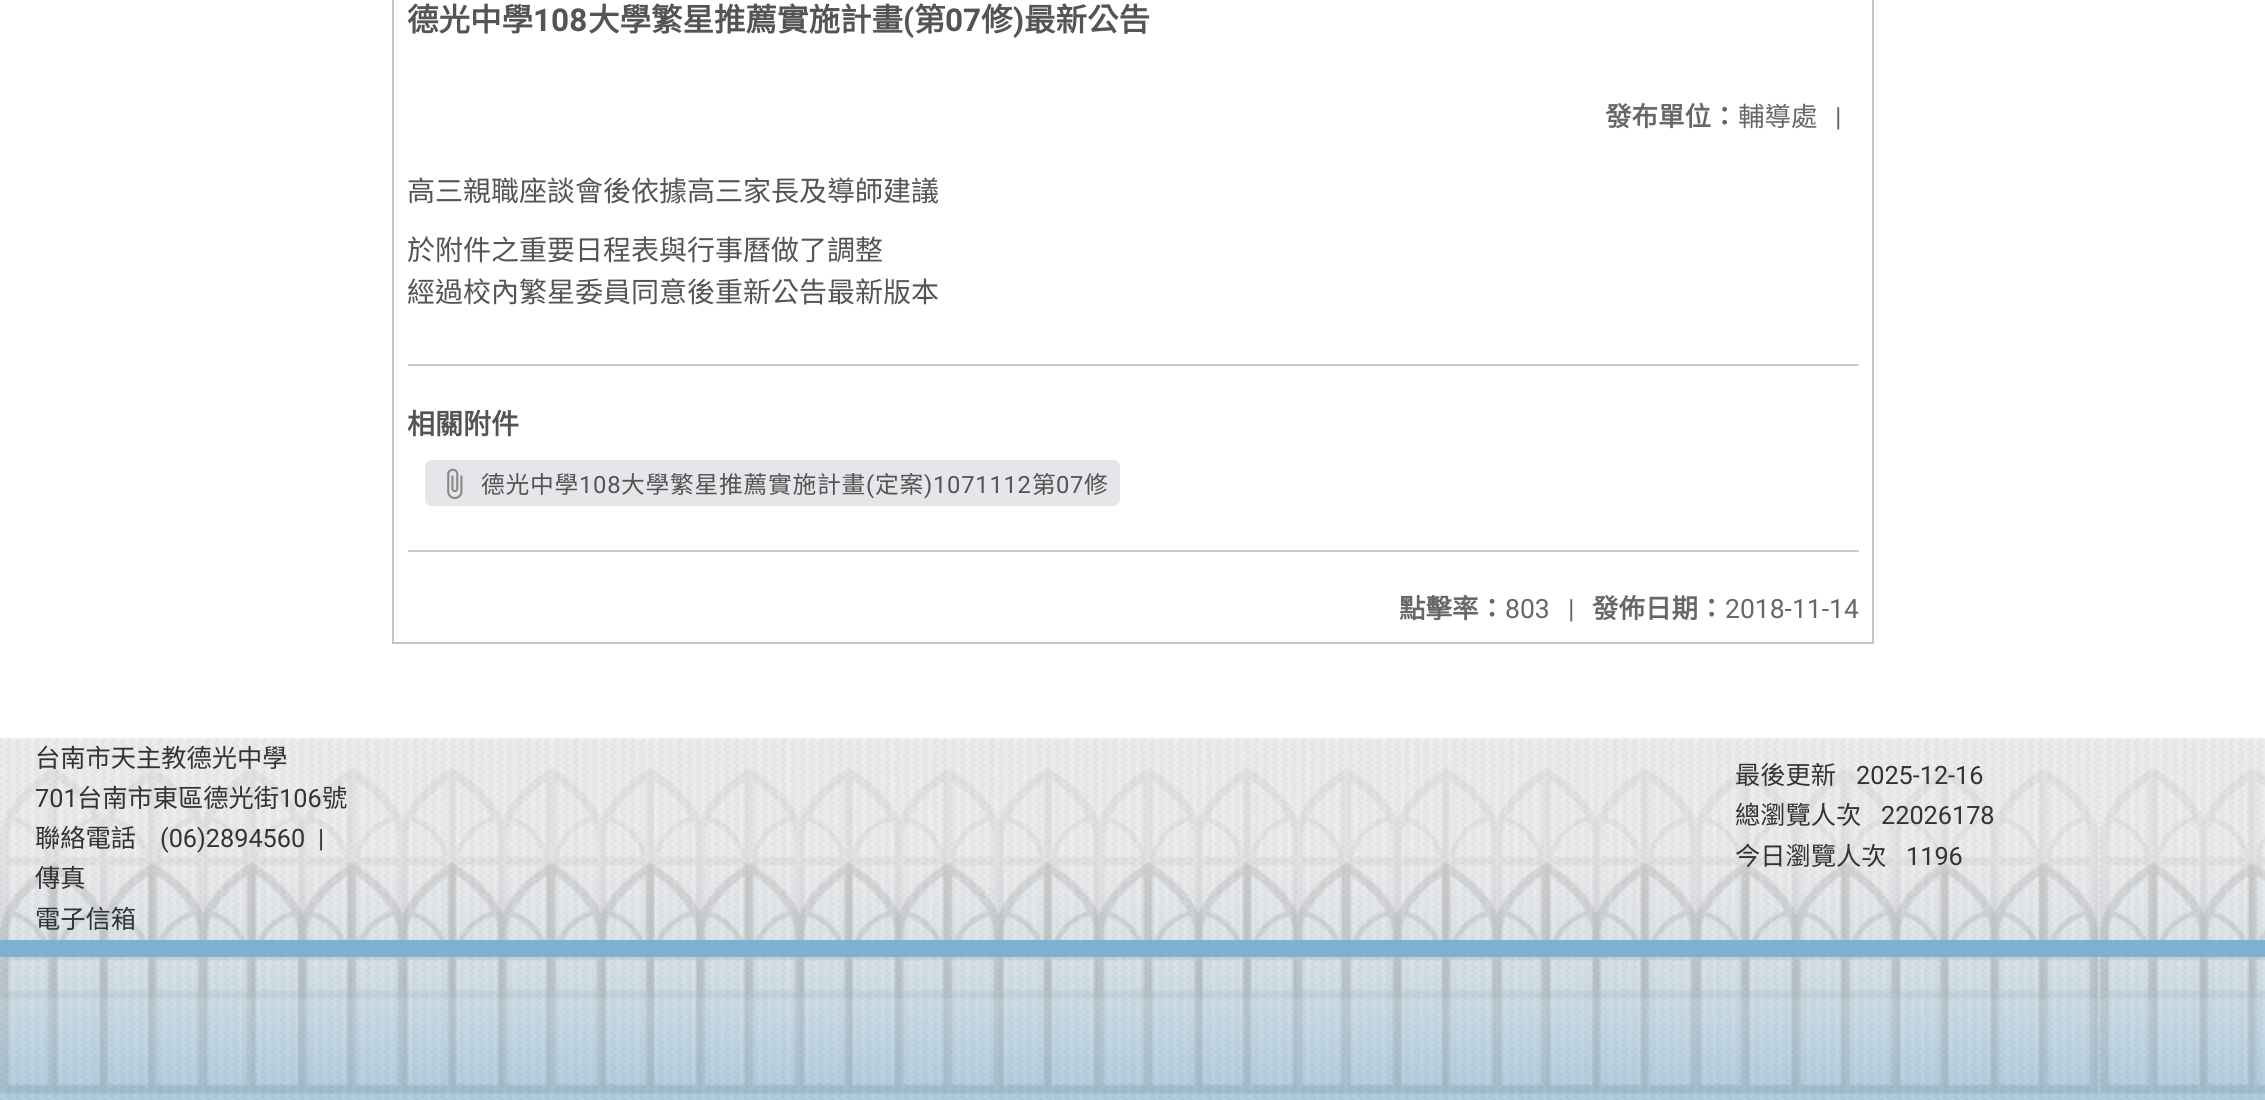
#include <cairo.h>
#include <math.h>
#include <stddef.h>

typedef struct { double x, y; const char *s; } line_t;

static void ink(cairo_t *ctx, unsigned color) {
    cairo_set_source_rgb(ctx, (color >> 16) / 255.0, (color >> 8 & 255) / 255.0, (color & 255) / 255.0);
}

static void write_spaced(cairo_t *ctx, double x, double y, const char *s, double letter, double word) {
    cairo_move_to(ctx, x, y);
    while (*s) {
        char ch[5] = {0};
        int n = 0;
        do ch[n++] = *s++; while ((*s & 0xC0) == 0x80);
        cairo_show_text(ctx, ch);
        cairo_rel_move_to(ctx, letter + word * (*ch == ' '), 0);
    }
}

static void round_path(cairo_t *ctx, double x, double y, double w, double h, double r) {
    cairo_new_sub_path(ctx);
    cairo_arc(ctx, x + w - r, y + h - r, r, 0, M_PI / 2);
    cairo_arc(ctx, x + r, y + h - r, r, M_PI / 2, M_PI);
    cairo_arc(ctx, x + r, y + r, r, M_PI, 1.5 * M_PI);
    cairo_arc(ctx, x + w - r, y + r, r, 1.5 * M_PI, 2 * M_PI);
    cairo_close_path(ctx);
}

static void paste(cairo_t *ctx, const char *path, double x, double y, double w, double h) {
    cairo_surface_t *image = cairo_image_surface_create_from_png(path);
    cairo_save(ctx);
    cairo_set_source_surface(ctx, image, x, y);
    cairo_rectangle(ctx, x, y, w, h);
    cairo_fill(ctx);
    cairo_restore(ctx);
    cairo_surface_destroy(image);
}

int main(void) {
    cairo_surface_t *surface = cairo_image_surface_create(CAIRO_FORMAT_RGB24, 2265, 1100);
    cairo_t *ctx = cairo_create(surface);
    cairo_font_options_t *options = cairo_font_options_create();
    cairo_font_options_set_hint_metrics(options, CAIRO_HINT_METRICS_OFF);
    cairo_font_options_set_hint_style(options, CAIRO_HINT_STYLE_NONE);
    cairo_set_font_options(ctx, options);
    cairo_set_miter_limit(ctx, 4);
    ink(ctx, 0xFFFFFF);
    cairo_paint(ctx);
    cairo_rectangle(ctx, 393, -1, 1480, 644);
    ink(ctx, 0xC5C5C5);
    cairo_stroke(ctx);
    cairo_select_font_face(ctx, "Noto Sans CJK TC", CAIRO_FONT_SLANT_NORMAL, CAIRO_FONT_WEIGHT_BOLD);
    cairo_set_font_size(ctx, 31.5);
    ink(ctx, 0x545454);
    cairo_move_to(ctx, 407, 31);
    cairo_show_text(ctx, "德光中學");
    cairo_select_font_face(ctx, "Roboto", CAIRO_FONT_SLANT_NORMAL, CAIRO_FONT_WEIGHT_BOLD);
    cairo_move_to(ctx, 533, 31);
    cairo_show_text(ctx, "108");
    cairo_select_font_face(ctx, "Noto Sans CJK TC", CAIRO_FONT_SLANT_NORMAL, CAIRO_FONT_WEIGHT_BOLD);
    cairo_move_to(ctx, 588, 31);
    cairo_show_text(ctx, "大學繁星推薦實施計畫");
    cairo_select_font_face(ctx, "Roboto", CAIRO_FONT_SLANT_NORMAL, CAIRO_FONT_WEIGHT_BOLD);
    cairo_move_to(ctx, 903, 31);
    cairo_show_text(ctx, "(");
    cairo_select_font_face(ctx, "Noto Sans CJK TC", CAIRO_FONT_SLANT_NORMAL, CAIRO_FONT_WEIGHT_BOLD);
    cairo_move_to(ctx, 914, 31);
    cairo_show_text(ctx, "第");
    cairo_select_font_face(ctx, "Roboto", CAIRO_FONT_SLANT_NORMAL, CAIRO_FONT_WEIGHT_BOLD);
    cairo_move_to(ctx, 945, 31);
    cairo_show_text(ctx, "07");
    cairo_select_font_face(ctx, "Noto Sans CJK TC", CAIRO_FONT_SLANT_NORMAL, CAIRO_FONT_WEIGHT_BOLD);
    cairo_move_to(ctx, 981, 31);
    cairo_show_text(ctx, "修");
    cairo_select_font_face(ctx, "Roboto", CAIRO_FONT_SLANT_NORMAL, CAIRO_FONT_WEIGHT_BOLD);
    cairo_move_to(ctx, 1013, 31);
    cairo_show_text(ctx, ")");
    cairo_select_font_face(ctx, "Noto Sans CJK TC", CAIRO_FONT_SLANT_NORMAL, CAIRO_FONT_WEIGHT_BOLD);
    cairo_move_to(ctx, 1024, 31);
    cairo_show_text(ctx, "最新公告");
    cairo_set_font_size(ctx, 26.5);
    ink(ctx, 0x656769);
    cairo_move_to(ctx, 1605, 126);
    cairo_show_text(ctx, "發布單位：");
    cairo_select_font_face(ctx, "Noto Sans CJK TC", CAIRO_FONT_SLANT_NORMAL, CAIRO_FONT_WEIGHT_NORMAL);
    cairo_move_to(ctx, 1738, 126);
    cairo_show_text(ctx, "輔導處");
    cairo_select_font_face(ctx, "Roboto", CAIRO_FONT_SLANT_NORMAL, CAIRO_FONT_WEIGHT_NORMAL);
    cairo_move_to(ctx, 1835, 126);
    cairo_show_text(ctx, "|");
    cairo_select_font_face(ctx, "Noto Sans CJK TC", CAIRO_FONT_SLANT_NORMAL, CAIRO_FONT_WEIGHT_NORMAL);
    cairo_set_font_size(ctx, 28);
    ink(ctx, 0x545454);
    {
        static const line_t items[] = {
            {407, 201, "高三親職座談會後依據高三家長及導師建議"},
            {407, 260, "於附件之重要日程表與行事曆做了調整"},
            {407, 302, "經過校內繁星委員同意後重新公告最新版本"},
        };
        for (size_t i = 0; i < sizeof items / sizeof *items; i++) {
            cairo_move_to(ctx, items[i].x, items[i].y);
            cairo_show_text(ctx, items[i].s);
        }
    }
    ink(ctx, 0xCCCCCC);
    cairo_rectangle(ctx, 408, 364, 1451, 2);
    cairo_fill(ctx);
    cairo_select_font_face(ctx, "Noto Sans CJK TC", CAIRO_FONT_SLANT_NORMAL, CAIRO_FONT_WEIGHT_BOLD);
    ink(ctx, 0x545454);
    cairo_move_to(ctx, 407, 434);
    cairo_show_text(ctx, "相關附件");
    ink(ctx, 0xE5E6E9);
    round_path(ctx, 426, 461, 693, 44, 6);
    cairo_fill_preserve(ctx);
    cairo_stroke(ctx);
    paste(ctx, "media/1.png", 447, 468, 16, 32);
    cairo_select_font_face(ctx, "Noto Sans CJK TC", CAIRO_FONT_SLANT_NORMAL, CAIRO_FONT_WEIGHT_NORMAL);
    cairo_set_font_size(ctx, 23.75);
    ink(ctx, 0x545454);
    write_spaced(ctx, 481, 493, "德光中學", 0.75, 0);
    cairo_select_font_face(ctx, "Roboto", CAIRO_FONT_SLANT_NORMAL, CAIRO_FONT_WEIGHT_NORMAL);
    write_spaced(ctx, 579, 493, "108", 0.75, 0);
    cairo_select_font_face(ctx, "Noto Sans CJK TC", CAIRO_FONT_SLANT_NORMAL, CAIRO_FONT_WEIGHT_NORMAL);
    write_spaced(ctx, 621, 493, "大學繁星推薦實施計畫", 0.75, 0);
    cairo_select_font_face(ctx, "Roboto", CAIRO_FONT_SLANT_NORMAL, CAIRO_FONT_WEIGHT_NORMAL);
    write_spaced(ctx, 866, 493, "(", 0.75, 0);
    cairo_select_font_face(ctx, "Noto Sans CJK TC", CAIRO_FONT_SLANT_NORMAL, CAIRO_FONT_WEIGHT_NORMAL);
    write_spaced(ctx, 875, 493, "定案", 0.75, 0);
    cairo_select_font_face(ctx, "Roboto", CAIRO_FONT_SLANT_NORMAL, CAIRO_FONT_WEIGHT_NORMAL);
    write_spaced(ctx, 924, 493, ")1071112", 0.75, 0);
    cairo_select_font_face(ctx, "Noto Sans CJK TC", CAIRO_FONT_SLANT_NORMAL, CAIRO_FONT_WEIGHT_NORMAL);
    write_spaced(ctx, 1032, 493, "第", 0.75, 0);
    cairo_select_font_face(ctx, "Roboto", CAIRO_FONT_SLANT_NORMAL, CAIRO_FONT_WEIGHT_NORMAL);
    write_spaced(ctx, 1056, 493, "07", 0.75, 0);
    cairo_select_font_face(ctx, "Noto Sans CJK TC", CAIRO_FONT_SLANT_NORMAL, CAIRO_FONT_WEIGHT_NORMAL);
    write_spaced(ctx, 1084, 493, "修", 0.75, 0);
    ink(ctx, 0xCCCCCC);
    cairo_rectangle(ctx, 408, 550, 1451, 2);
    cairo_fill(ctx);
    cairo_select_font_face(ctx, "Noto Sans CJK TC", CAIRO_FONT_SLANT_NORMAL, CAIRO_FONT_WEIGHT_BOLD);
    cairo_set_font_size(ctx, 26.5);
    ink(ctx, 0x656769);
    cairo_move_to(ctx, 1399, 618);
    cairo_show_text(ctx, "點擊率：");
    cairo_select_font_face(ctx, "Roboto", CAIRO_FONT_SLANT_NORMAL, CAIRO_FONT_WEIGHT_NORMAL);
    cairo_move_to(ctx, 1505, 618);
    cairo_show_text(ctx, "803");
    cairo_move_to(ctx, 1568, 618);
    cairo_show_text(ctx, "|");
    cairo_select_font_face(ctx, "Noto Sans CJK TC", CAIRO_FONT_SLANT_NORMAL, CAIRO_FONT_WEIGHT_BOLD);
    cairo_move_to(ctx, 1592, 618);
    cairo_show_text(ctx, "發佈日期：");
    cairo_select_font_face(ctx, "Roboto", CAIRO_FONT_SLANT_NORMAL, CAIRO_FONT_WEIGHT_NORMAL);
    cairo_move_to(ctx, 1725, 618);
    cairo_show_text(ctx, "2018-11-14");
    paste(ctx, "media/2.png", 0, 738, 2265, 362);
    cairo_select_font_face(ctx, "Noto Sans CJK TC", CAIRO_FONT_SLANT_NORMAL, CAIRO_FONT_WEIGHT_NORMAL);
    cairo_set_font_size(ctx, 25.25);
    ink(ctx, 0x333333);
    cairo_move_to(ctx, 35, 767);
    cairo_show_text(ctx, "台南市天主教德光中學");
    cairo_select_font_face(ctx, "Roboto", CAIRO_FONT_SLANT_NORMAL, CAIRO_FONT_WEIGHT_NORMAL);
    cairo_move_to(ctx, 35, 807);
    cairo_show_text(ctx, "701");
    cairo_select_font_face(ctx, "Noto Sans CJK TC", CAIRO_FONT_SLANT_NORMAL, CAIRO_FONT_WEIGHT_NORMAL);
    cairo_move_to(ctx, 77, 807);
    cairo_show_text(ctx, "台南市東區德光街");
    cairo_select_font_face(ctx, "Roboto", CAIRO_FONT_SLANT_NORMAL, CAIRO_FONT_WEIGHT_NORMAL);
    cairo_move_to(ctx, 279, 807);
    cairo_show_text(ctx, "106");
    cairo_select_font_face(ctx, "Noto Sans CJK TC", CAIRO_FONT_SLANT_NORMAL, CAIRO_FONT_WEIGHT_NORMAL);
    cairo_move_to(ctx, 322, 807);
    cairo_show_text(ctx, "號");
    cairo_move_to(ctx, 35, 847);
    cairo_show_text(ctx, "聯絡電話");
    cairo_select_font_face(ctx, "Roboto", CAIRO_FONT_SLANT_NORMAL, CAIRO_FONT_WEIGHT_NORMAL);
    cairo_move_to(ctx, 160, 847);
    cairo_show_text(ctx, "(06)2894560");
    cairo_move_to(ctx, 318, 847);
    cairo_show_text(ctx, "|");
    cairo_select_font_face(ctx, "Noto Sans CJK TC", CAIRO_FONT_SLANT_NORMAL, CAIRO_FONT_WEIGHT_NORMAL);
    {
        static const line_t items[] = {
            {35, 887, "傳真"},
            {35, 928, "電子信箱"},
            {1735, 784, "最後更新"},
        };
        for (size_t i = 0; i < sizeof items / sizeof *items; i++) {
            cairo_move_to(ctx, items[i].x, items[i].y);
            cairo_show_text(ctx, items[i].s);
        }
    }
    cairo_select_font_face(ctx, "Roboto", CAIRO_FONT_SLANT_NORMAL, CAIRO_FONT_WEIGHT_NORMAL);
    cairo_move_to(ctx, 1856, 784);
    cairo_show_text(ctx, "2025-12-16");
    cairo_select_font_face(ctx, "Noto Sans CJK TC", CAIRO_FONT_SLANT_NORMAL, CAIRO_FONT_WEIGHT_NORMAL);
    cairo_move_to(ctx, 1735, 824);
    cairo_show_text(ctx, "總瀏覽人次");
    cairo_select_font_face(ctx, "Roboto", CAIRO_FONT_SLANT_NORMAL, CAIRO_FONT_WEIGHT_NORMAL);
    cairo_move_to(ctx, 1881, 824);
    cairo_show_text(ctx, "22026178");
    cairo_select_font_face(ctx, "Noto Sans CJK TC", CAIRO_FONT_SLANT_NORMAL, CAIRO_FONT_WEIGHT_NORMAL);
    cairo_move_to(ctx, 1735, 865);
    cairo_show_text(ctx, "今日瀏覽人次");
    cairo_select_font_face(ctx, "Roboto", CAIRO_FONT_SLANT_NORMAL, CAIRO_FONT_WEIGHT_NORMAL);
    cairo_move_to(ctx, 1906, 865);
    cairo_show_text(ctx, "1196");
    ink(ctx, 0x7CB1D3);
    cairo_rectangle(ctx, 0, 940, 2265, 17);
    cairo_fill(ctx);
    cairo_surface_write_to_png(surface, "image.png");
    cairo_font_options_destroy(options);
    cairo_destroy(ctx);
    cairo_surface_destroy(surface);
    return 0;
}
